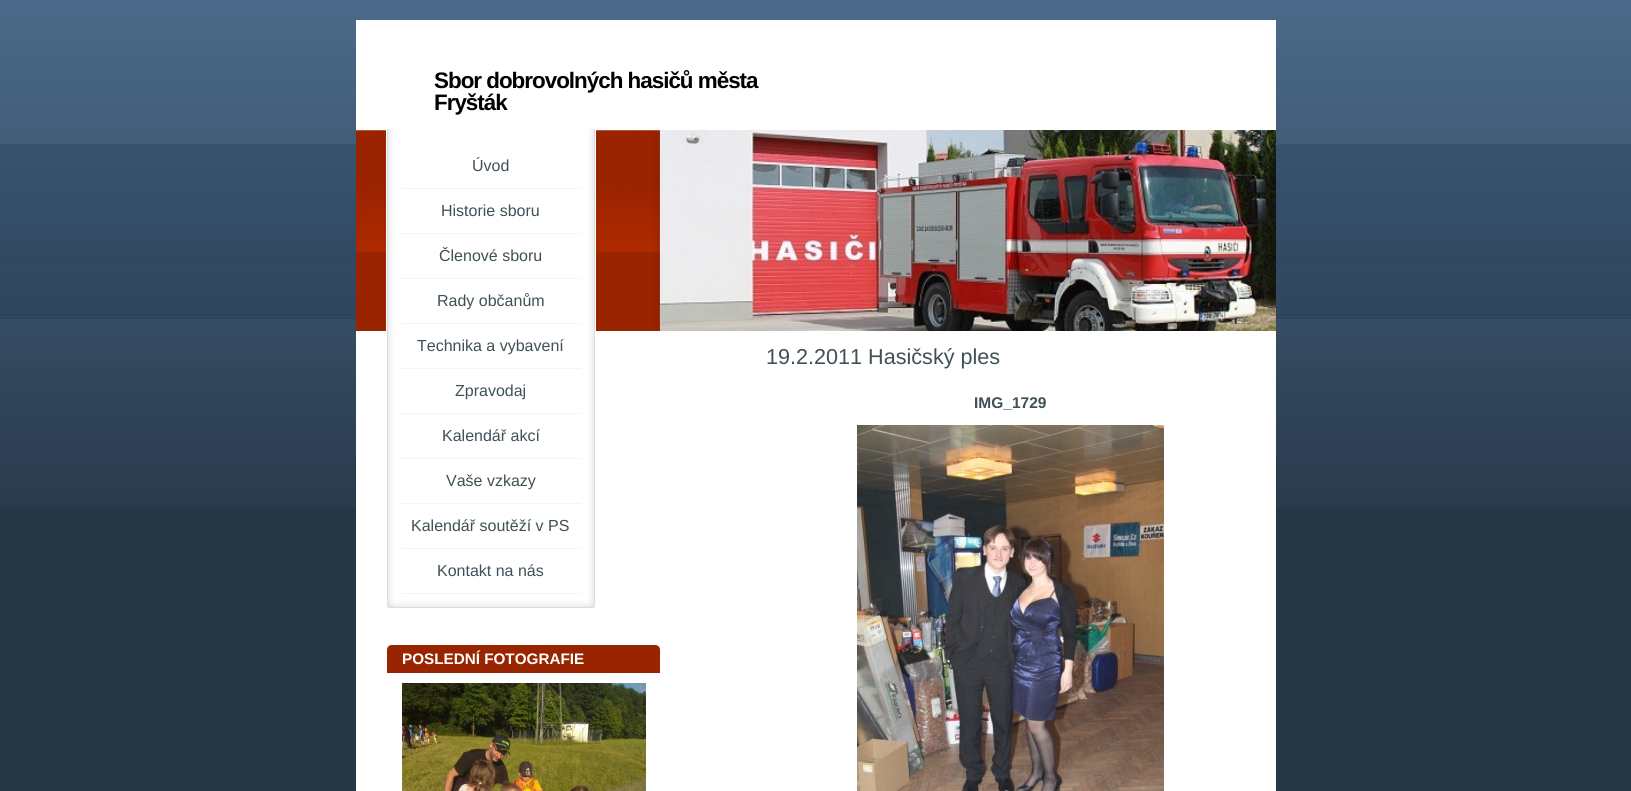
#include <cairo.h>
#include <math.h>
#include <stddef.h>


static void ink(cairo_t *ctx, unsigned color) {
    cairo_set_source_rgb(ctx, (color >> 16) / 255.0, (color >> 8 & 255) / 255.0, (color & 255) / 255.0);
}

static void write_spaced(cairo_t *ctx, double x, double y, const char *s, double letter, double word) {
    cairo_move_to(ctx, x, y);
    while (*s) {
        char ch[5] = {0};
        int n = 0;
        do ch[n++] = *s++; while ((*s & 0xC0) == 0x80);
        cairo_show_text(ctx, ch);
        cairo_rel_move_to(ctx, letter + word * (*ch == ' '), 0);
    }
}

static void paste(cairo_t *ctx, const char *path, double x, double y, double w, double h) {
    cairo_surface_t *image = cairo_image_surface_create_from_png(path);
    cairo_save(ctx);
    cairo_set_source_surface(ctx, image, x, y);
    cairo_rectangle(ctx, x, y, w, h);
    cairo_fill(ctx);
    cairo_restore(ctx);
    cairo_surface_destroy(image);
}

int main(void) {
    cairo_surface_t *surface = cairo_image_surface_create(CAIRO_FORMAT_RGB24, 1631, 791);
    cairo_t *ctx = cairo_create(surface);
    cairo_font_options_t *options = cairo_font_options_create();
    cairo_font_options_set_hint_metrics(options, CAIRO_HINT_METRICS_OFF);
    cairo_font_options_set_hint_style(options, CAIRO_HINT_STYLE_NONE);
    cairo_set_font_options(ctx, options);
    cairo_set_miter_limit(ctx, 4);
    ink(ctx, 0x263746);
    cairo_paint(ctx);
    paste(ctx, "media/1.png", 0, 0, 1631, 507);
    ink(ctx, 0xFFFFFF);
    cairo_rectangle(ctx, 356, 20, 920, 110);
    cairo_fill(ctx);
    paste(ctx, "media/2.png", 356, 130, 304, 201);
    cairo_select_font_face(ctx, "Liberation Sans", CAIRO_FONT_SLANT_NORMAL, CAIRO_FONT_WEIGHT_BOLD);
    cairo_set_font_size(ctx, 22.4);
    ink(ctx, 0x000000);
    write_spaced(ctx, 434, 88, "Sbor dobrovolných hasičů města", -1, 0);
    write_spaced(ctx, 434, 110, "Fryšták", -1, 0);
    paste(ctx, "media/3.png", 660, 130, 616, 201);
    ink(ctx, 0xFFFFFF);
    cairo_rectangle(ctx, 356, 331, 920, 460);
    cairo_fill(ctx);
    paste(ctx, "media/4.png", 386, 129, 210, 479);
    ink(ctx, 0xF5F5F5);
    cairo_rectangle(ctx, 401, 188, 180, 1);
    cairo_fill(ctx);
    cairo_select_font_face(ctx, "Liberation Sans", CAIRO_FONT_SLANT_NORMAL, CAIRO_FONT_WEIGHT_NORMAL);
    cairo_set_font_size(ctx, 16);
    ink(ctx, 0x3F5057);
    cairo_move_to(ctx, 472, 171);
    cairo_show_text(ctx, "Úvod");
    ink(ctx, 0xF5F5F5);
    cairo_rectangle(ctx, 401, 233, 180, 1);
    cairo_fill(ctx);
    ink(ctx, 0x3F5057);
    cairo_move_to(ctx, 441, 216);
    cairo_show_text(ctx, "Historie sboru");
    ink(ctx, 0xF5F5F5);
    cairo_rectangle(ctx, 401, 278, 180, 1);
    cairo_fill(ctx);
    ink(ctx, 0x3F5057);
    cairo_move_to(ctx, 439, 261);
    cairo_show_text(ctx, "Členové sboru");
    ink(ctx, 0xF5F5F5);
    cairo_rectangle(ctx, 401, 323, 180, 1);
    cairo_fill(ctx);
    ink(ctx, 0x3F5057);
    cairo_move_to(ctx, 437, 306);
    cairo_show_text(ctx, "Rady občanům");
    ink(ctx, 0xF5F5F5);
    cairo_rectangle(ctx, 401, 368, 180, 1);
    cairo_fill(ctx);
    ink(ctx, 0x3F5057);
    cairo_move_to(ctx, 417, 351);
    cairo_show_text(ctx, "Technika a vybavení");
    ink(ctx, 0xF5F5F5);
    cairo_rectangle(ctx, 401, 413, 180, 1);
    cairo_fill(ctx);
    ink(ctx, 0x3F5057);
    cairo_move_to(ctx, 455, 396);
    cairo_show_text(ctx, "Zpravodaj");
    ink(ctx, 0xF5F5F5);
    cairo_rectangle(ctx, 401, 458, 180, 1);
    cairo_fill(ctx);
    ink(ctx, 0x3F5057);
    cairo_move_to(ctx, 442, 441);
    cairo_show_text(ctx, "Kalendář akcí");
    ink(ctx, 0xF5F5F5);
    cairo_rectangle(ctx, 401, 503, 180, 1);
    cairo_fill(ctx);
    ink(ctx, 0x3F5057);
    cairo_move_to(ctx, 446, 486);
    cairo_show_text(ctx, "Vaše vzkazy");
    ink(ctx, 0xF5F5F5);
    cairo_rectangle(ctx, 401, 548, 180, 1);
    cairo_fill(ctx);
    ink(ctx, 0x3F5057);
    cairo_move_to(ctx, 411, 531);
    cairo_show_text(ctx, "Kalendář soutěží v PS");
    ink(ctx, 0xF5F5F5);
    cairo_rectangle(ctx, 401, 593, 180, 1);
    cairo_fill(ctx);
    ink(ctx, 0x3F5057);
    cairo_move_to(ctx, 437, 576);
    cairo_show_text(ctx, "Kontakt na nás");
    ink(ctx, 0x992500);
    cairo_new_path(ctx);
    cairo_move_to(ctx, 392, 645);
    cairo_line_to(ctx, 655, 645);
    cairo_curve_to(ctx, 658, 645, 660, 647, 660, 650);
    cairo_line_to(ctx, 660, 673);
    cairo_line_to(ctx, 387, 673);
    cairo_line_to(ctx, 387, 650);
    cairo_curve_to(ctx, 387, 647, 389, 645, 392, 645);
    cairo_close_path(ctx);
    cairo_fill(ctx);
    cairo_select_font_face(ctx, "Liberation Sans", CAIRO_FONT_SLANT_NORMAL, CAIRO_FONT_WEIGHT_BOLD);
    cairo_set_font_size(ctx, 15.25);
    ink(ctx, 0xFFFFFF);
    cairo_move_to(ctx, 402, 664);
    cairo_show_text(ctx, "POSLEDNÍ FOTOGRAFIE");
    paste(ctx, "media/5.png", 402, 683, 244, 108);
    cairo_select_font_face(ctx, "Liberation Sans", CAIRO_FONT_SLANT_NORMAL, CAIRO_FONT_WEIGHT_NORMAL);
    cairo_set_font_size(ctx, 21.6);
    ink(ctx, 0x3F5057);
    cairo_move_to(ctx, 766, 364);
    cairo_show_text(ctx, "19.2.2011 Hasičský ples");
    cairo_select_font_face(ctx, "Liberation Sans", CAIRO_FONT_SLANT_NORMAL, CAIRO_FONT_WEIGHT_BOLD);
    cairo_set_font_size(ctx, 15.5);
    cairo_move_to(ctx, 974, 408);
    cairo_show_text(ctx, "IMG_1729");
    paste(ctx, "media/6.png", 857, 425, 307, 366);
    cairo_surface_write_to_png(surface, "image.png");
    cairo_font_options_destroy(options);
    cairo_destroy(ctx);
    cairo_surface_destroy(surface);
    return 0;
}
